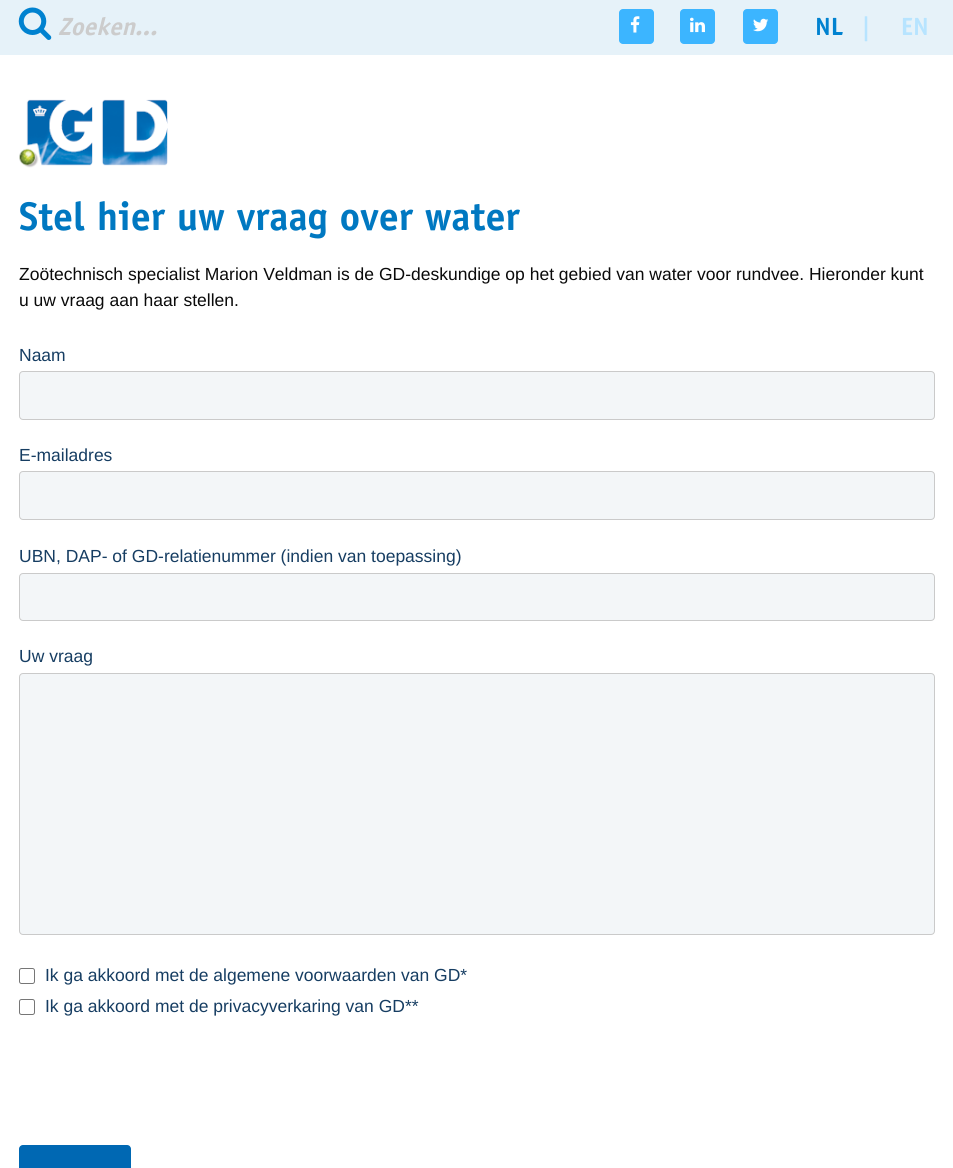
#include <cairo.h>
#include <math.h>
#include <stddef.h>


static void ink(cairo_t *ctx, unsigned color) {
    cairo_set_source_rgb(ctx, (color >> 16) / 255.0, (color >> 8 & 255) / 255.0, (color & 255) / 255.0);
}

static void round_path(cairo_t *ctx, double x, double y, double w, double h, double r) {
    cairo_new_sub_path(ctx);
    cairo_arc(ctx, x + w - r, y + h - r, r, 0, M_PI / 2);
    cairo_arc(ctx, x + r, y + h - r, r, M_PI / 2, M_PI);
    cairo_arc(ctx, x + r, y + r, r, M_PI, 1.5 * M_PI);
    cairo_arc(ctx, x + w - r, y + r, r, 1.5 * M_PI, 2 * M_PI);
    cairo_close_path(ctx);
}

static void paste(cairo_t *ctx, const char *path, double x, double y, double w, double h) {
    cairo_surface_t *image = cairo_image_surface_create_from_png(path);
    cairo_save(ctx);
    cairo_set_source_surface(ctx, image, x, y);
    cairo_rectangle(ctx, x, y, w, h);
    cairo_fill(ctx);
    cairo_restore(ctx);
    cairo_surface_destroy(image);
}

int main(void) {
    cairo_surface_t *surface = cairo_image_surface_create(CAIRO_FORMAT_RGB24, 953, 1168);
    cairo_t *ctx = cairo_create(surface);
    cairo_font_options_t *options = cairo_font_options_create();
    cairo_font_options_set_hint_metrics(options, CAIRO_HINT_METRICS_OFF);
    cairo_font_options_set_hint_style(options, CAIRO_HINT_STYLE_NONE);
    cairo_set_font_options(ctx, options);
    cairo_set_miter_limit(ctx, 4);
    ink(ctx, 0xFFFFFF);
    cairo_paint(ctx);
    ink(ctx, 0xE6F2F9);
    cairo_rectangle(ctx, 0, 0, 953, 55);
    cairo_fill(ctx);
    paste(ctx, "media/1.png", 18, 7, 34, 33);
    cairo_select_font_face(ctx, "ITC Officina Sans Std", CAIRO_FONT_SLANT_ITALIC, CAIRO_FONT_WEIGHT_BOLD);
    cairo_set_font_size(ctx, 25);
    ink(ctx, 0xCCCCCC);
    cairo_move_to(ctx, 58, 35);
    cairo_show_text(ctx, "Zoeken...");
    ink(ctx, 0x3CB5FF);
    round_path(ctx, 619, 9, 35, 35, 4);
    cairo_fill(ctx);
    paste(ctx, "media/2.png", 630, 16, 10, 17);
    round_path(ctx, 680, 9, 35, 35, 4);
    cairo_fill(ctx);
    paste(ctx, "media/3.png", 690, 17, 15, 16);
    round_path(ctx, 743, 9, 35, 35, 4);
    cairo_fill(ctx);
    paste(ctx, "media/4.png", 753, 18, 16, 14);
    cairo_select_font_face(ctx, "ITC Officina Sans Std", CAIRO_FONT_SLANT_NORMAL, CAIRO_FONT_WEIGHT_BOLD);
    ink(ctx, 0x0082D0);
    cairo_move_to(ctx, 815, 35);
    cairo_show_text(ctx, "NL");
    ink(ctx, 0xB7E4FF);
    cairo_move_to(ctx, 861, 35);
    cairo_show_text(ctx, "|");
    cairo_move_to(ctx, 901, 35);
    cairo_show_text(ctx, "EN");
    paste(ctx, "media/5.png", 19, 99, 149, 69);
    cairo_set_font_size(ctx, 40);
    ink(ctx, 0x0078C1);
    cairo_move_to(ctx, 19, 230);
    cairo_show_text(ctx, "Stel hier uw vraag over water");
    cairo_select_font_face(ctx, "Liberation Sans", CAIRO_FONT_SLANT_NORMAL, CAIRO_FONT_WEIGHT_NORMAL);
    cairo_set_font_size(ctx, 17.5);
    ink(ctx, 0x0A0A0A);
    cairo_move_to(ctx, 19, 280);
    cairo_show_text(ctx, "Zoötechnisch specialist Marion Veldman is de GD-deskundige op het gebied van water voor rundvee. Hieronder kunt");
    cairo_move_to(ctx, 19, 306);
    cairo_show_text(ctx, "u uw vraag aan haar stellen.");
    ink(ctx, 0x163D62);
    cairo_move_to(ctx, 19, 361);
    cairo_show_text(ctx, "Naam");
    ink(ctx, 0xF3F6F8);
    round_path(ctx, 19.5, 371.5, 915, 48, 3.5);
    cairo_fill_preserve(ctx);
    ink(ctx, 0xCACACA);
    cairo_set_line_width(ctx, 1);
    cairo_stroke(ctx);
    ink(ctx, 0x163D62);
    cairo_move_to(ctx, 19, 461);
    cairo_show_text(ctx, "E-mailadres");
    ink(ctx, 0xF3F6F8);
    round_path(ctx, 19.5, 471.5, 915, 48, 3.5);
    cairo_fill_preserve(ctx);
    ink(ctx, 0xCACACA);
    cairo_stroke(ctx);
    ink(ctx, 0x163D62);
    cairo_move_to(ctx, 19, 562);
    cairo_show_text(ctx, "UBN, DAP- of GD-relatienummer (indien van toepassing)");
    ink(ctx, 0xF3F6F8);
    round_path(ctx, 19.5, 573.5, 915, 47, 3.5);
    cairo_fill_preserve(ctx);
    ink(ctx, 0xCACACA);
    cairo_stroke(ctx);
    ink(ctx, 0x163D62);
    cairo_move_to(ctx, 19, 662);
    cairo_show_text(ctx, "Uw vraag");
    ink(ctx, 0xF3F6F8);
    round_path(ctx, 19.5, 673.5, 915, 261, 3.5);
    cairo_fill_preserve(ctx);
    ink(ctx, 0xCACACA);
    cairo_stroke(ctx);
    round_path(ctx, 19.5, 968.5, 15, 15, 2);
    ink(ctx, 0x767676);
    cairo_stroke(ctx);
    ink(ctx, 0x163D62);
    cairo_move_to(ctx, 45, 981);
    cairo_show_text(ctx, "Ik ga akkoord met de algemene voorwaarden van GD*");
    round_path(ctx, 19.5, 999.5, 15, 15, 2);
    ink(ctx, 0x767676);
    cairo_stroke(ctx);
    ink(ctx, 0x163D62);
    cairo_move_to(ctx, 45, 1012);
    cairo_show_text(ctx, "Ik ga akkoord met de privacyverkaring van GD**");
    ink(ctx, 0x0068B3);
    round_path(ctx, 19, 1145, 112, 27, 4);
    cairo_fill(ctx);
    cairo_surface_write_to_png(surface, "image.png");
    cairo_font_options_destroy(options);
    cairo_destroy(ctx);
    cairo_surface_destroy(surface);
    return 0;
}
